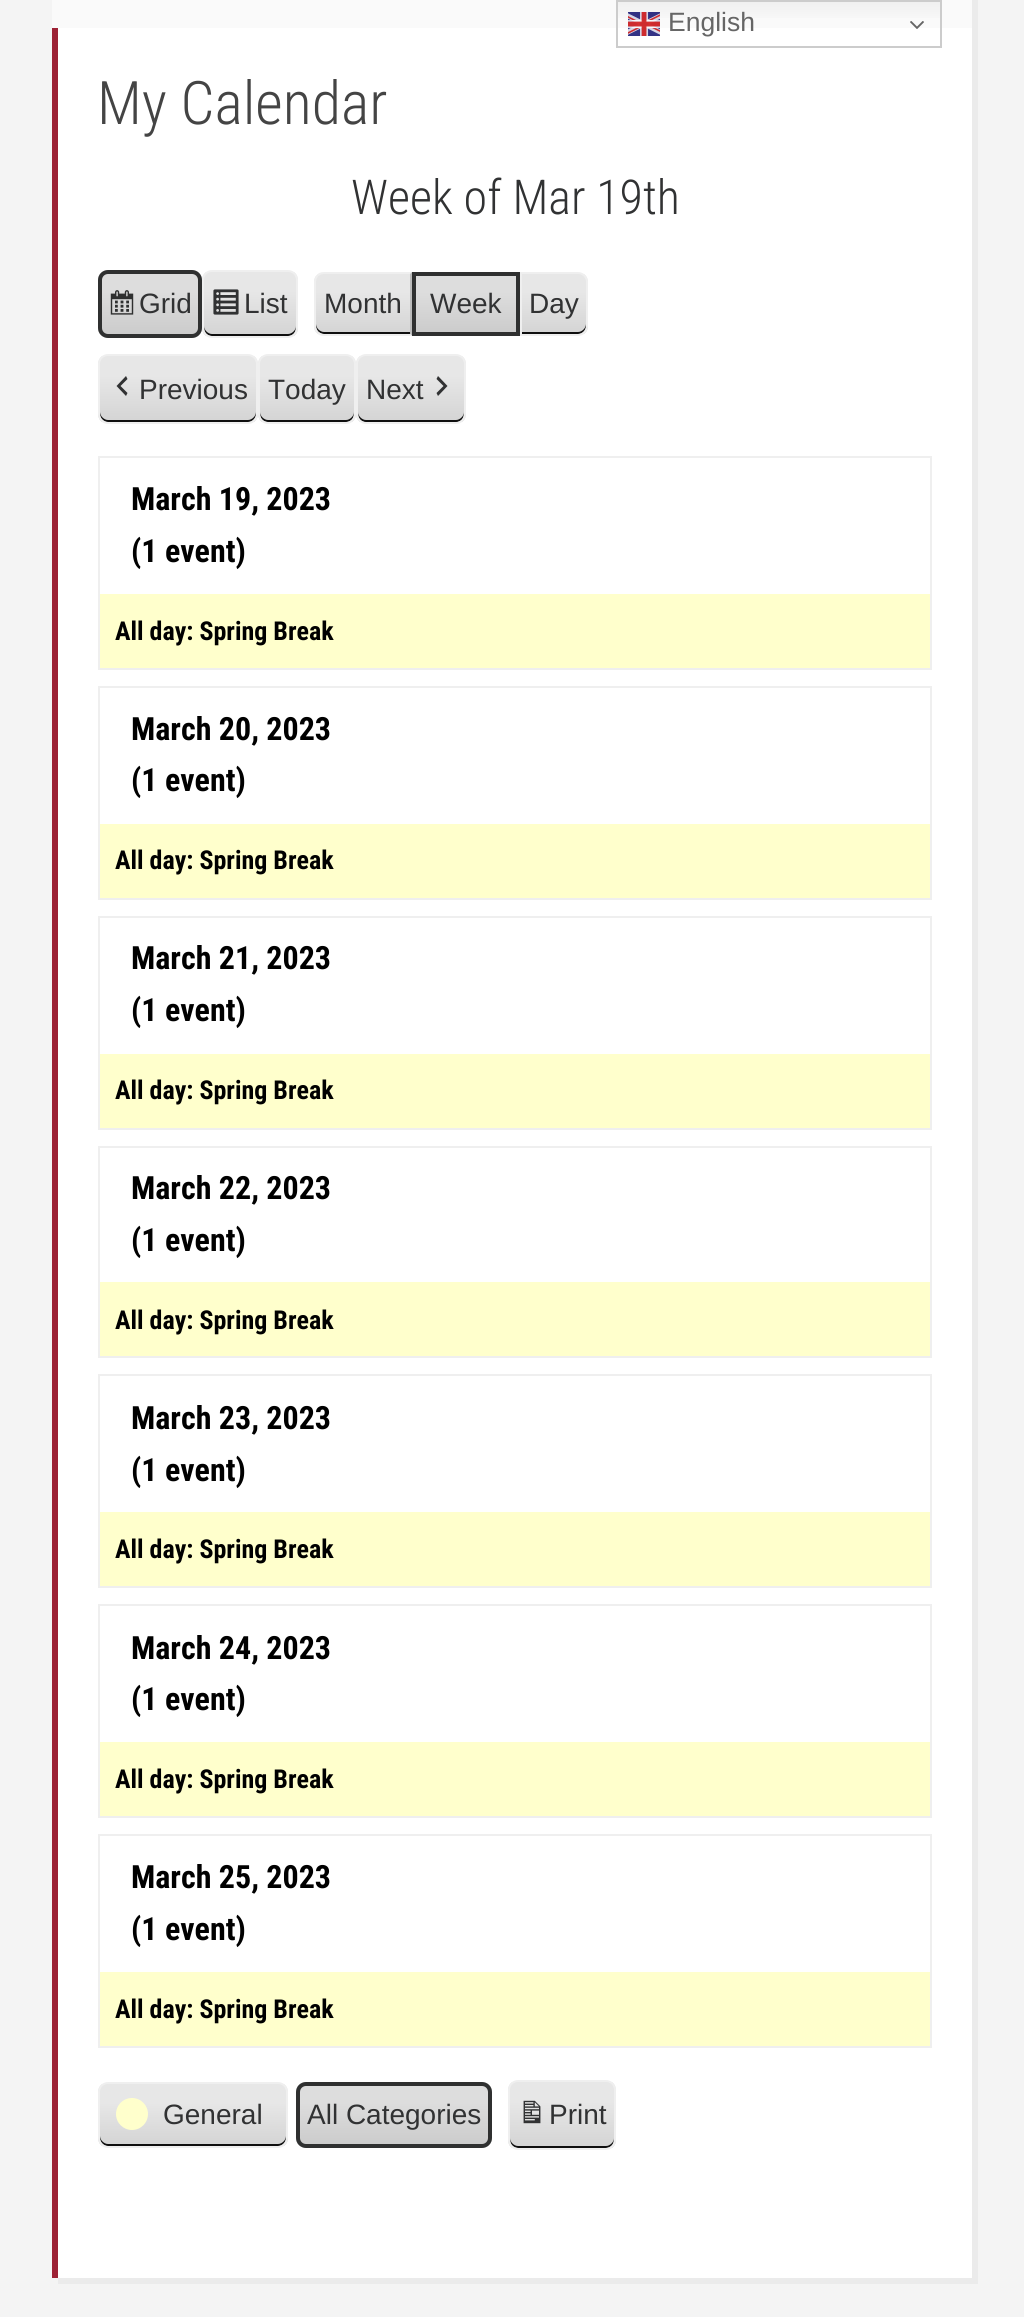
#include <cairo.h>
#include <math.h>
#include <stddef.h>


static void ink(cairo_t *ctx, unsigned color) {
    cairo_set_source_rgb(ctx, (color >> 16) / 255.0, (color >> 8 & 255) / 255.0, (color & 255) / 255.0);
}

static void round_path(cairo_t *ctx, double x, double y, double w, double h, double r) {
    cairo_new_sub_path(ctx);
    cairo_arc(ctx, x + w - r, y + h - r, r, 0, M_PI / 2);
    cairo_arc(ctx, x + r, y + h - r, r, M_PI / 2, M_PI);
    cairo_arc(ctx, x + r, y + r, r, M_PI, 1.5 * M_PI);
    cairo_arc(ctx, x + w - r, y + r, r, 1.5 * M_PI, 2 * M_PI);
    cairo_close_path(ctx);
}

static void paste(cairo_t *ctx, const char *path, double x, double y, double w, double h) {
    cairo_surface_t *image = cairo_image_surface_create_from_png(path);
    cairo_save(ctx);
    cairo_set_source_surface(ctx, image, x, y);
    cairo_rectangle(ctx, x, y, w, h);
    cairo_fill(ctx);
    cairo_restore(ctx);
    cairo_surface_destroy(image);
}

int main(void) {
    cairo_surface_t *surface = cairo_image_surface_create(CAIRO_FORMAT_RGB24, 1024, 2317);
    cairo_t *ctx = cairo_create(surface);
    cairo_font_options_t *options = cairo_font_options_create();
    cairo_font_options_set_hint_metrics(options, CAIRO_HINT_METRICS_OFF);
    cairo_font_options_set_hint_style(options, CAIRO_HINT_STYLE_NONE);
    cairo_set_font_options(ctx, options);
    cairo_set_miter_limit(ctx, 4);
    cairo_pattern_t *gradient;
    ink(ctx, 0xF4F4F4);
    cairo_paint(ctx);
    ink(ctx, 0xEBEBEB);
    cairo_new_path(ctx);
    cairo_move_to(ctx, 58, 28);
    cairo_line_to(ctx, 58, 34);
    cairo_line_to(ctx, 978, 34);
    cairo_line_to(ctx, 978, -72);
    cairo_line_to(ctx, 972, -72);
    cairo_line_to(ctx, 972, 28);
    cairo_close_path(ctx);
    cairo_fill(ctx);
    ink(ctx, 0xFAFAFA);
    cairo_rectangle(ctx, 52, 0, 920, 28);
    cairo_fill(ctx);
    gradient = cairo_pattern_create_linear(779, 0, 779, 48);
    cairo_pattern_add_color_stop_rgba(gradient, 0, 0.937, 0.937, 0.937, 1);
    cairo_pattern_add_color_stop_rgba(gradient, 0.7, 1, 1, 1, 1);
    cairo_set_source(ctx, gradient);
    cairo_pattern_destroy(gradient);
    cairo_rectangle(ctx, 618, 2, 322, 16);
    cairo_fill(ctx);
    ink(ctx, 0xEBEBEB);
    cairo_new_path(ctx);
    cairo_move_to(ctx, 58, 2278);
    cairo_line_to(ctx, 58, 2284);
    cairo_line_to(ctx, 978, 2284);
    cairo_line_to(ctx, 978, 34);
    cairo_line_to(ctx, 972, 34);
    cairo_line_to(ctx, 972, 2278);
    cairo_close_path(ctx);
    cairo_fill(ctx);
    ink(ctx, 0xFFFFFF);
    cairo_rectangle(ctx, 58, 28, 914, 2250);
    cairo_fill(ctx);
    cairo_rectangle(ctx, 617, 1, 324, 46);
    ink(ctx, 0xCCCCCC);
    cairo_stroke(ctx);
    paste(ctx, "media/1.png", 628, 12, 32, 24);
    cairo_select_font_face(ctx, "Liberation Sans", CAIRO_FONT_SLANT_NORMAL, CAIRO_FONT_WEIGHT_NORMAL);
    cairo_set_font_size(ctx, 26.5);
    ink(ctx, 0x666666);
    cairo_move_to(ctx, 668, 31);
    cairo_show_text(ctx, "English");
    paste(ctx, "media/2.png", 910, 21, 14, 8);
    ink(ctx, 0x9D2235);
    cairo_rectangle(ctx, 52, 28, 6, 2250);
    cairo_fill(ctx);
    cairo_select_font_face(ctx, "Roboto Condensed Light", CAIRO_FONT_SLANT_NORMAL, CAIRO_FONT_WEIGHT_NORMAL);
    cairo_set_font_size(ctx, 60);
    ink(ctx, 0x444444);
    cairo_move_to(ctx, 97, 124);
    cairo_show_text(ctx, "My Calendar");
    cairo_set_font_size(ctx, 48);
    ink(ctx, 0x313233);
    cairo_move_to(ctx, 351, 214);
    cairo_show_text(ctx, "Week of Mar 19th");
    cairo_save(ctx);
    round_path(ctx, 98, 270, 104, 68, 10);
    cairo_clip(ctx);
    gradient = cairo_pattern_create_linear(150, 336, 150, 272);
    cairo_pattern_add_color_stop_rgba(gradient, 0, 0.796, 0.796, 0.796, 1);
    cairo_pattern_add_color_stop_rgba(gradient, 0.7, 0.867, 0.867, 0.867, 1);
    cairo_set_source(ctx, gradient);
    cairo_pattern_destroy(gradient);
    cairo_rectangle(ctx, 98, 272, 104, 64);
    cairo_fill(ctx);
    cairo_restore(ctx);
    round_path(ctx, 99, 271, 102, 66, 9);
    ink(ctx, 0xE3E3E3);
    cairo_stroke(ctx);
    paste(ctx, "media/3.png", 110, 290, 24, 25);
    round_path(ctx, 100, 272, 100, 64, 8);
    ink(ctx, 0x2F3030);
    cairo_set_line_width(ctx, 4);
    cairo_stroke(ctx);
    cairo_select_font_face(ctx, "Liberation Sans", CAIRO_FONT_SLANT_NORMAL, CAIRO_FONT_WEIGHT_NORMAL);
    cairo_set_font_size(ctx, 28);
    ink(ctx, 0x313233);
    cairo_move_to(ctx, 139, 313);
    cairo_show_text(ctx, "Grid");
    cairo_save(ctx);
    round_path(ctx, 202, 270, 96, 68, 10);
    cairo_clip(ctx);
    gradient = cairo_pattern_create_linear(250, 336, 250, 272);
    cairo_pattern_add_color_stop_rgba(gradient, 0, 0.831, 0.831, 0.831, 1);
    cairo_pattern_add_color_stop_rgba(gradient, 0.7, 0.906, 0.906, 0.906, 1);
    cairo_set_source(ctx, gradient);
    cairo_pattern_destroy(gradient);
    cairo_rectangle(ctx, 202, 272, 96, 64);
    cairo_fill(ctx);
    cairo_restore(ctx);
    ink(ctx, 0x0F0F0F);
    cairo_new_path(ctx);
    cairo_move_to(ctx, 204, 326);
    cairo_curve_to(ctx, 204, 339, 215, 336, 225, 336);
    cairo_line_to(ctx, 275, 336);
    cairo_curve_to(ctx, 285, 336, 296, 339, 296, 326);
    cairo_curve_to(ctx, 296, 330, 292, 334, 288, 334);
    cairo_line_to(ctx, 212, 334);
    cairo_curve_to(ctx, 208, 334, 204, 330, 204, 326);
    cairo_close_path(ctx);
    cairo_fill(ctx);
    round_path(ctx, 203, 271, 94, 66, 9);
    ink(ctx, 0xEFEFEF);
    cairo_set_line_width(ctx, 2);
    cairo_stroke(ctx);
    paste(ctx, "media/4.png", 213, 289, 26, 26);
    ink(ctx, 0x313233);
    cairo_move_to(ctx, 244, 313);
    cairo_show_text(ctx, "List");
    cairo_save(ctx);
    cairo_new_path(ctx);
    cairo_move_to(ctx, 324, 272);
    cairo_line_to(ctx, 412, 272);
    cairo_line_to(ctx, 412, 336);
    cairo_line_to(ctx, 324, 336);
    cairo_curve_to(ctx, 318.5, 336, 314, 331.5, 314, 326);
    cairo_line_to(ctx, 314, 282);
    cairo_curve_to(ctx, 314, 276.5, 318.5, 272, 324, 272);
    cairo_close_path(ctx);
    cairo_clip(ctx);
    gradient = cairo_pattern_create_linear(363, 334, 363, 274);
    cairo_pattern_add_color_stop_rgba(gradient, 0, 0.831, 0.831, 0.831, 1);
    cairo_pattern_add_color_stop_rgba(gradient, 0.7, 0.906, 0.906, 0.906, 1);
    cairo_set_source(ctx, gradient);
    cairo_pattern_destroy(gradient);
    cairo_rectangle(ctx, 314, 274, 96, 60);
    cairo_fill(ctx);
    cairo_restore(ctx);
    ink(ctx, 0x0F0F0F);
    cairo_new_path(ctx);
    cairo_move_to(ctx, 316, 324);
    cairo_line_to(ctx, 316, 326);
    cairo_curve_to(ctx, 316, 330, 320, 334, 324, 334);
    cairo_line_to(ctx, 410, 334);
    cairo_line_to(ctx, 410, 332);
    cairo_line_to(ctx, 324, 332);
    cairo_curve_to(ctx, 320, 332, 316, 328, 316, 324);
    cairo_close_path(ctx);
    cairo_fill(ctx);
    ink(ctx, 0xEFEFEF);
    cairo_new_path(ctx);
    cairo_move_to(ctx, 324, 272);
    cairo_curve_to(ctx, 321, 272, 318, 273, 317, 275);
    cairo_line_to(ctx, 318, 276);
    cairo_curve_to(ctx, 320, 275, 322, 274, 324, 274);
    cairo_line_to(ctx, 410, 274);
    cairo_line_to(ctx, 412, 272);
    cairo_close_path(ctx);
    cairo_fill(ctx);
    ink(ctx, 0xBBBBBB);
    cairo_new_path(ctx);
    cairo_move_to(ctx, 412, 272);
    cairo_line_to(ctx, 410, 274);
    cairo_line_to(ctx, 410, 334);
    cairo_line_to(ctx, 412, 336);
    cairo_close_path(ctx);
    cairo_fill(ctx);
    ink(ctx, 0xEFEFEF);
    cairo_new_path(ctx);
    cairo_move_to(ctx, 412, 336);
    cairo_line_to(ctx, 410, 334);
    cairo_line_to(ctx, 324, 334);
    cairo_curve_to(ctx, 322, 334, 320, 333, 318, 332);
    cairo_line_to(ctx, 317, 333);
    cairo_curve_to(ctx, 318, 335, 321, 336, 324, 336);
    cairo_close_path(ctx);
    cairo_fill(ctx);
    cairo_new_path(ctx);
    cairo_move_to(ctx, 314, 282);
    cairo_line_to(ctx, 314, 326);
    cairo_curve_to(ctx, 314, 329, 315, 332, 317, 333);
    cairo_line_to(ctx, 318, 332);
    cairo_curve_to(ctx, 317, 330, 316, 328, 316, 326);
    cairo_line_to(ctx, 316, 282);
    cairo_curve_to(ctx, 316, 280, 317, 278, 318, 276);
    cairo_line_to(ctx, 317, 275);
    cairo_curve_to(ctx, 315, 276, 314, 279, 314, 282);
    cairo_close_path(ctx);
    cairo_fill(ctx);
    ink(ctx, 0x313233);
    cairo_move_to(ctx, 324, 313);
    cairo_show_text(ctx, "Month");
    gradient = cairo_pattern_create_linear(466, 334, 466, 274);
    cairo_pattern_add_color_stop_rgba(gradient, 0, 0.796, 0.796, 0.796, 1);
    cairo_pattern_add_color_stop_rgba(gradient, 0.7, 0.867, 0.867, 0.867, 1);
    cairo_set_source(ctx, gradient);
    cairo_pattern_destroy(gradient);
    cairo_rectangle(ctx, 416, 276, 100, 56);
    cairo_fill(ctx);
    cairo_rectangle(ctx, 414, 274, 104, 60);
    ink(ctx, 0x2F3030);
    cairo_set_line_width(ctx, 4);
    cairo_stroke(ctx);
    ink(ctx, 0x313233);
    cairo_move_to(ctx, 430, 313);
    cairo_show_text(ctx, "Week");
    cairo_save(ctx);
    cairo_new_path(ctx);
    cairo_move_to(ctx, 520, 272);
    cairo_line_to(ctx, 578, 272);
    cairo_curve_to(ctx, 583.5, 272, 588, 276.5, 588, 282);
    cairo_line_to(ctx, 588, 326);
    cairo_curve_to(ctx, 588, 331.5, 583.5, 336, 578, 336);
    cairo_line_to(ctx, 520, 336);
    cairo_close_path(ctx);
    cairo_clip(ctx);
    gradient = cairo_pattern_create_linear(554, 334, 554, 274);
    cairo_pattern_add_color_stop_rgba(gradient, 0, 0.831, 0.831, 0.831, 1);
    cairo_pattern_add_color_stop_rgba(gradient, 0.7, 0.906, 0.906, 0.906, 1);
    cairo_set_source(ctx, gradient);
    cairo_pattern_destroy(gradient);
    cairo_rectangle(ctx, 522, 274, 66, 60);
    cairo_fill(ctx);
    cairo_restore(ctx);
    ink(ctx, 0x0F0F0F);
    cairo_new_path(ctx);
    cairo_move_to(ctx, 522, 332);
    cairo_line_to(ctx, 522, 334);
    cairo_line_to(ctx, 578, 334);
    cairo_curve_to(ctx, 582, 334, 586, 330, 586, 326);
    cairo_line_to(ctx, 586, 324);
    cairo_curve_to(ctx, 586, 328, 582, 332, 578, 332);
    cairo_close_path(ctx);
    cairo_fill(ctx);
    cairo_new_path(ctx);
    cairo_move_to(ctx, 521, 273);
    cairo_line_to(ctx, 578, 273);
    cairo_curve_to(ctx, 583, 273, 587, 277, 587, 282);
    cairo_line_to(ctx, 587, 326);
    cairo_curve_to(ctx, 587, 331, 583, 335, 578, 335);
    cairo_line_to(ctx, 521, 335);
    cairo_close_path(ctx);
    ink(ctx, 0xEFEFEF);
    cairo_set_line_width(ctx, 2);
    cairo_stroke(ctx);
    ink(ctx, 0x313233);
    cairo_move_to(ctx, 529, 313);
    cairo_show_text(ctx, "Day");
    cairo_save(ctx);
    round_path(ctx, 98, 354, 160, 70, 10);
    cairo_clip(ctx);
    gradient = cairo_pattern_create_linear(178, 422, 178, 356);
    cairo_pattern_add_color_stop_rgba(gradient, 0, 0.831, 0.831, 0.831, 1);
    cairo_pattern_add_color_stop_rgba(gradient, 0.7, 0.906, 0.906, 0.906, 1);
    cairo_set_source(ctx, gradient);
    cairo_pattern_destroy(gradient);
    cairo_rectangle(ctx, 98, 356, 160, 66);
    cairo_fill(ctx);
    cairo_restore(ctx);
    ink(ctx, 0x0F0F0F);
    cairo_new_path(ctx);
    cairo_move_to(ctx, 100, 412);
    cairo_line_to(ctx, 100, 414);
    cairo_curve_to(ctx, 100, 418, 104, 422, 108, 422);
    cairo_line_to(ctx, 248, 422);
    cairo_curve_to(ctx, 252, 422, 256, 418, 256, 414);
    cairo_line_to(ctx, 256, 412);
    cairo_curve_to(ctx, 256, 416, 252, 420, 248, 420);
    cairo_line_to(ctx, 108, 420);
    cairo_curve_to(ctx, 104, 420, 100, 416, 100, 412);
    cairo_close_path(ctx);
    cairo_fill(ctx);
    round_path(ctx, 99, 355, 158, 68, 9);
    ink(ctx, 0xEFEFEF);
    cairo_stroke(ctx);
    ink(ctx, 0x313233);
    cairo_new_path(ctx);
    cairo_move_to(ctx, 127.5, 379);
    cairo_line_to(ctx, 120.5, 386);
    cairo_line_to(ctx, 127.5, 393);
    cairo_line_to(ctx, 126, 396);
    cairo_line_to(ctx, 116.5, 386);
    cairo_line_to(ctx, 126, 376);
    cairo_close_path(ctx);
    cairo_fill(ctx);
    cairo_move_to(ctx, 139, 399);
    cairo_show_text(ctx, "Previous");
    cairo_save(ctx);
    round_path(ctx, 258, 354, 98, 70, 10);
    cairo_clip(ctx);
    gradient = cairo_pattern_create_linear(307, 422, 307, 356);
    cairo_pattern_add_color_stop_rgba(gradient, 0, 0.831, 0.831, 0.831, 1);
    cairo_pattern_add_color_stop_rgba(gradient, 0.7, 0.906, 0.906, 0.906, 1);
    cairo_set_source(ctx, gradient);
    cairo_pattern_destroy(gradient);
    cairo_rectangle(ctx, 258, 356, 98, 66);
    cairo_fill(ctx);
    cairo_restore(ctx);
    ink(ctx, 0x0F0F0F);
    cairo_new_path(ctx);
    cairo_move_to(ctx, 260, 412);
    cairo_curve_to(ctx, 260, 425, 271, 422, 281, 422);
    cairo_line_to(ctx, 333, 422);
    cairo_curve_to(ctx, 343, 422, 354, 425, 354, 412);
    cairo_curve_to(ctx, 354, 416, 350, 420, 346, 420);
    cairo_line_to(ctx, 268, 420);
    cairo_curve_to(ctx, 264, 420, 260, 416, 260, 412);
    cairo_close_path(ctx);
    cairo_fill(ctx);
    round_path(ctx, 259, 355, 96, 68, 9);
    ink(ctx, 0xEFEFEF);
    cairo_stroke(ctx);
    ink(ctx, 0x313233);
    cairo_move_to(ctx, 268, 399);
    cairo_show_text(ctx, "Today");
    cairo_save(ctx);
    round_path(ctx, 356, 354, 110, 70, 10);
    cairo_clip(ctx);
    gradient = cairo_pattern_create_linear(411, 422, 411, 356);
    cairo_pattern_add_color_stop_rgba(gradient, 0, 0.831, 0.831, 0.831, 1);
    cairo_pattern_add_color_stop_rgba(gradient, 0.7, 0.906, 0.906, 0.906, 1);
    cairo_set_source(ctx, gradient);
    cairo_pattern_destroy(gradient);
    cairo_rectangle(ctx, 356, 356, 110, 66);
    cairo_fill(ctx);
    cairo_restore(ctx);
    ink(ctx, 0x0F0F0F);
    cairo_new_path(ctx);
    cairo_move_to(ctx, 358, 412);
    cairo_curve_to(ctx, 358, 426, 371, 422, 381, 422);
    cairo_line_to(ctx, 441, 422);
    cairo_curve_to(ctx, 451, 422, 464, 426, 464, 412);
    cairo_curve_to(ctx, 464, 416, 460, 420, 456, 420);
    cairo_line_to(ctx, 366, 420);
    cairo_curve_to(ctx, 362, 420, 358, 416, 358, 412);
    cairo_close_path(ctx);
    cairo_fill(ctx);
    round_path(ctx, 357, 355, 108, 68, 9);
    ink(ctx, 0xEFEFEF);
    cairo_stroke(ctx);
    ink(ctx, 0x313233);
    cairo_move_to(ctx, 366, 399);
    cairo_show_text(ctx, "Next");
    cairo_new_path(ctx);
    cairo_move_to(ctx, 436.5, 393);
    cairo_line_to(ctx, 443.5, 386);
    cairo_line_to(ctx, 436.5, 379);
    cairo_line_to(ctx, 438, 376);
    cairo_line_to(ctx, 447.5, 386);
    cairo_line_to(ctx, 438, 396);
    cairo_close_path(ctx);
    cairo_fill(ctx);
    cairo_rectangle(ctx, 99, 457, 832, 212);
    ink(ctx, 0xEFEFEF);
    cairo_stroke(ctx);
    cairo_select_font_face(ctx, "Roboto Condensed", CAIRO_FONT_SLANT_NORMAL, CAIRO_FONT_WEIGHT_BOLD);
    cairo_set_font_size(ctx, 32);
    ink(ctx, 0x000000);
    cairo_move_to(ctx, 131, 510);
    cairo_show_text(ctx, "March 19, 2023");
    cairo_move_to(ctx, 131, 562);
    cairo_show_text(ctx, "(1 event)");
    ink(ctx, 0xFFFFCC);
    cairo_rectangle(ctx, 100, 594, 830, 74);
    cairo_fill(ctx);
    cairo_set_font_size(ctx, 26);
    ink(ctx, 0x000000);
    cairo_move_to(ctx, 115, 640);
    cairo_show_text(ctx, "All day: Spring Break");
    cairo_rectangle(ctx, 99, 687, 832, 212);
    ink(ctx, 0xEFEFEF);
    cairo_stroke(ctx);
    cairo_set_font_size(ctx, 32);
    ink(ctx, 0x000000);
    cairo_move_to(ctx, 131, 740);
    cairo_show_text(ctx, "March 20, 2023");
    cairo_move_to(ctx, 131, 791);
    cairo_show_text(ctx, "(1 event)");
    ink(ctx, 0xFFFFCC);
    cairo_rectangle(ctx, 100, 824, 830, 74);
    cairo_fill(ctx);
    cairo_set_font_size(ctx, 26);
    ink(ctx, 0x000000);
    cairo_move_to(ctx, 115, 869);
    cairo_show_text(ctx, "All day: Spring Break");
    cairo_rectangle(ctx, 99, 917, 832, 212);
    ink(ctx, 0xEFEFEF);
    cairo_stroke(ctx);
    cairo_set_font_size(ctx, 32);
    ink(ctx, 0x000000);
    cairo_move_to(ctx, 131, 969);
    cairo_show_text(ctx, "March 21, 2023");
    cairo_move_to(ctx, 131, 1021);
    cairo_show_text(ctx, "(1 event)");
    ink(ctx, 0xFFFFCC);
    cairo_rectangle(ctx, 100, 1054, 830, 74);
    cairo_fill(ctx);
    cairo_set_font_size(ctx, 26);
    ink(ctx, 0x000000);
    cairo_move_to(ctx, 115, 1099);
    cairo_show_text(ctx, "All day: Spring Break");
    cairo_rectangle(ctx, 99, 1147, 832, 210);
    ink(ctx, 0xEFEFEF);
    cairo_stroke(ctx);
    cairo_set_font_size(ctx, 32);
    ink(ctx, 0x000000);
    cairo_move_to(ctx, 131, 1199);
    cairo_show_text(ctx, "March 22, 2023");
    cairo_move_to(ctx, 131, 1251);
    cairo_show_text(ctx, "(1 event)");
    ink(ctx, 0xFFFFCC);
    cairo_rectangle(ctx, 100, 1282, 830, 74);
    cairo_fill(ctx);
    cairo_set_font_size(ctx, 26);
    ink(ctx, 0x000000);
    cairo_move_to(ctx, 115, 1329);
    cairo_show_text(ctx, "All day: Spring Break");
    cairo_rectangle(ctx, 99, 1375, 832, 212);
    ink(ctx, 0xEFEFEF);
    cairo_stroke(ctx);
    cairo_set_font_size(ctx, 32);
    ink(ctx, 0x000000);
    cairo_move_to(ctx, 131, 1429);
    cairo_show_text(ctx, "March 23, 2023");
    cairo_move_to(ctx, 131, 1481);
    cairo_show_text(ctx, "(1 event)");
    ink(ctx, 0xFFFFCC);
    cairo_rectangle(ctx, 100, 1512, 830, 74);
    cairo_fill(ctx);
    cairo_set_font_size(ctx, 26);
    ink(ctx, 0x000000);
    cairo_move_to(ctx, 115, 1558);
    cairo_show_text(ctx, "All day: Spring Break");
    cairo_rectangle(ctx, 99, 1605, 832, 212);
    ink(ctx, 0xEFEFEF);
    cairo_stroke(ctx);
    cairo_set_font_size(ctx, 32);
    ink(ctx, 0x000000);
    cairo_move_to(ctx, 131, 1659);
    cairo_show_text(ctx, "March 24, 2023");
    cairo_move_to(ctx, 131, 1710);
    cairo_show_text(ctx, "(1 event)");
    ink(ctx, 0xFFFFCC);
    cairo_rectangle(ctx, 100, 1742, 830, 74);
    cairo_fill(ctx);
    cairo_set_font_size(ctx, 26);
    ink(ctx, 0x000000);
    cairo_move_to(ctx, 115, 1788);
    cairo_show_text(ctx, "All day: Spring Break");
    cairo_rectangle(ctx, 99, 1835, 832, 212);
    ink(ctx, 0xEFEFEF);
    cairo_stroke(ctx);
    cairo_set_font_size(ctx, 32);
    ink(ctx, 0x000000);
    cairo_move_to(ctx, 131, 1888);
    cairo_show_text(ctx, "March 25, 2023");
    cairo_move_to(ctx, 131, 1940);
    cairo_show_text(ctx, "(1 event)");
    ink(ctx, 0xFFFFCC);
    cairo_rectangle(ctx, 100, 1972, 830, 74);
    cairo_fill(ctx);
    cairo_set_font_size(ctx, 26);
    ink(ctx, 0x000000);
    cairo_move_to(ctx, 115, 2018);
    cairo_show_text(ctx, "All day: Spring Break");
    cairo_save(ctx);
    round_path(ctx, 98, 2082, 190, 66, 10);
    cairo_clip(ctx);
    gradient = cairo_pattern_create_linear(193, 2146, 193, 2084);
    cairo_pattern_add_color_stop_rgba(gradient, 0, 0.831, 0.831, 0.831, 1);
    cairo_pattern_add_color_stop_rgba(gradient, 0.7, 0.906, 0.906, 0.906, 1);
    cairo_set_source(ctx, gradient);
    cairo_pattern_destroy(gradient);
    cairo_rectangle(ctx, 98, 2084, 190, 62);
    cairo_fill(ctx);
    cairo_restore(ctx);
    ink(ctx, 0x0F0F0F);
    cairo_new_path(ctx);
    cairo_move_to(ctx, 100, 2136);
    cairo_line_to(ctx, 100, 2138);
    cairo_curve_to(ctx, 100, 2142, 104, 2146, 108, 2146);
    cairo_line_to(ctx, 278, 2146);
    cairo_curve_to(ctx, 282, 2146, 286, 2142, 286, 2138);
    cairo_line_to(ctx, 286, 2136);
    cairo_curve_to(ctx, 286, 2140, 282, 2144, 278, 2144);
    cairo_line_to(ctx, 108, 2144);
    cairo_curve_to(ctx, 104, 2144, 100, 2140, 100, 2136);
    cairo_close_path(ctx);
    cairo_fill(ctx);
    round_path(ctx, 99, 2083, 188, 64, 9);
    ink(ctx, 0xEFEFEF);
    cairo_stroke(ctx);
    ink(ctx, 0xFFFFCC);
    cairo_arc(ctx, 132, 2114, 16, 0, 2 * M_PI);
    cairo_fill(ctx);
    cairo_select_font_face(ctx, "Liberation Sans", CAIRO_FONT_SLANT_NORMAL, CAIRO_FONT_WEIGHT_NORMAL);
    cairo_set_font_size(ctx, 28);
    ink(ctx, 0x313233);
    cairo_move_to(ctx, 163, 2124);
    cairo_show_text(ctx, "General");
    cairo_save(ctx);
    round_path(ctx, 296, 2082, 196, 66, 10);
    cairo_clip(ctx);
    gradient = cairo_pattern_create_linear(394, 2146, 394, 2084);
    cairo_pattern_add_color_stop_rgba(gradient, 0, 0.796, 0.796, 0.796, 1);
    cairo_pattern_add_color_stop_rgba(gradient, 0.7, 0.867, 0.867, 0.867, 1);
    cairo_set_source(ctx, gradient);
    cairo_pattern_destroy(gradient);
    cairo_rectangle(ctx, 296, 2084, 196, 62);
    cairo_fill(ctx);
    cairo_restore(ctx);
    round_path(ctx, 297, 2083, 194, 64, 9);
    ink(ctx, 0xE3E3E3);
    cairo_stroke(ctx);
    round_path(ctx, 298, 2084, 192, 62, 8);
    ink(ctx, 0x2F3030);
    cairo_set_line_width(ctx, 4);
    cairo_stroke(ctx);
    ink(ctx, 0x313233);
    cairo_move_to(ctx, 307, 2124);
    cairo_show_text(ctx, "All Categories");
    cairo_save(ctx);
    round_path(ctx, 508, 2080, 108, 70, 10);
    cairo_clip(ctx);
    gradient = cairo_pattern_create_linear(562, 2148, 562, 2082);
    cairo_pattern_add_color_stop_rgba(gradient, 0, 0.831, 0.831, 0.831, 1);
    cairo_pattern_add_color_stop_rgba(gradient, 0.7, 0.906, 0.906, 0.906, 1);
    cairo_set_source(ctx, gradient);
    cairo_pattern_destroy(gradient);
    cairo_rectangle(ctx, 508, 2082, 108, 66);
    cairo_fill(ctx);
    cairo_restore(ctx);
    ink(ctx, 0x0F0F0F);
    cairo_new_path(ctx);
    cairo_move_to(ctx, 510, 2138);
    cairo_curve_to(ctx, 510, 2151, 522, 2148, 533, 2148);
    cairo_line_to(ctx, 591, 2148);
    cairo_curve_to(ctx, 602, 2148, 614, 2151, 614, 2138);
    cairo_curve_to(ctx, 614, 2142, 610, 2146, 606, 2146);
    cairo_line_to(ctx, 518, 2146);
    cairo_curve_to(ctx, 514, 2146, 510, 2142, 510, 2138);
    cairo_close_path(ctx);
    cairo_fill(ctx);
    round_path(ctx, 509, 2081, 106, 68, 9);
    ink(ctx, 0xEFEFEF);
    cairo_set_line_width(ctx, 2);
    cairo_stroke(ctx);
    paste(ctx, "media/5.png", 523, 2100, 18, 24);
    ink(ctx, 0x313233);
    cairo_move_to(ctx, 549, 2124);
    cairo_show_text(ctx, "Print");
    cairo_surface_write_to_png(surface, "image.png");
    cairo_font_options_destroy(options);
    cairo_destroy(ctx);
    cairo_surface_destroy(surface);
    return 0;
}
